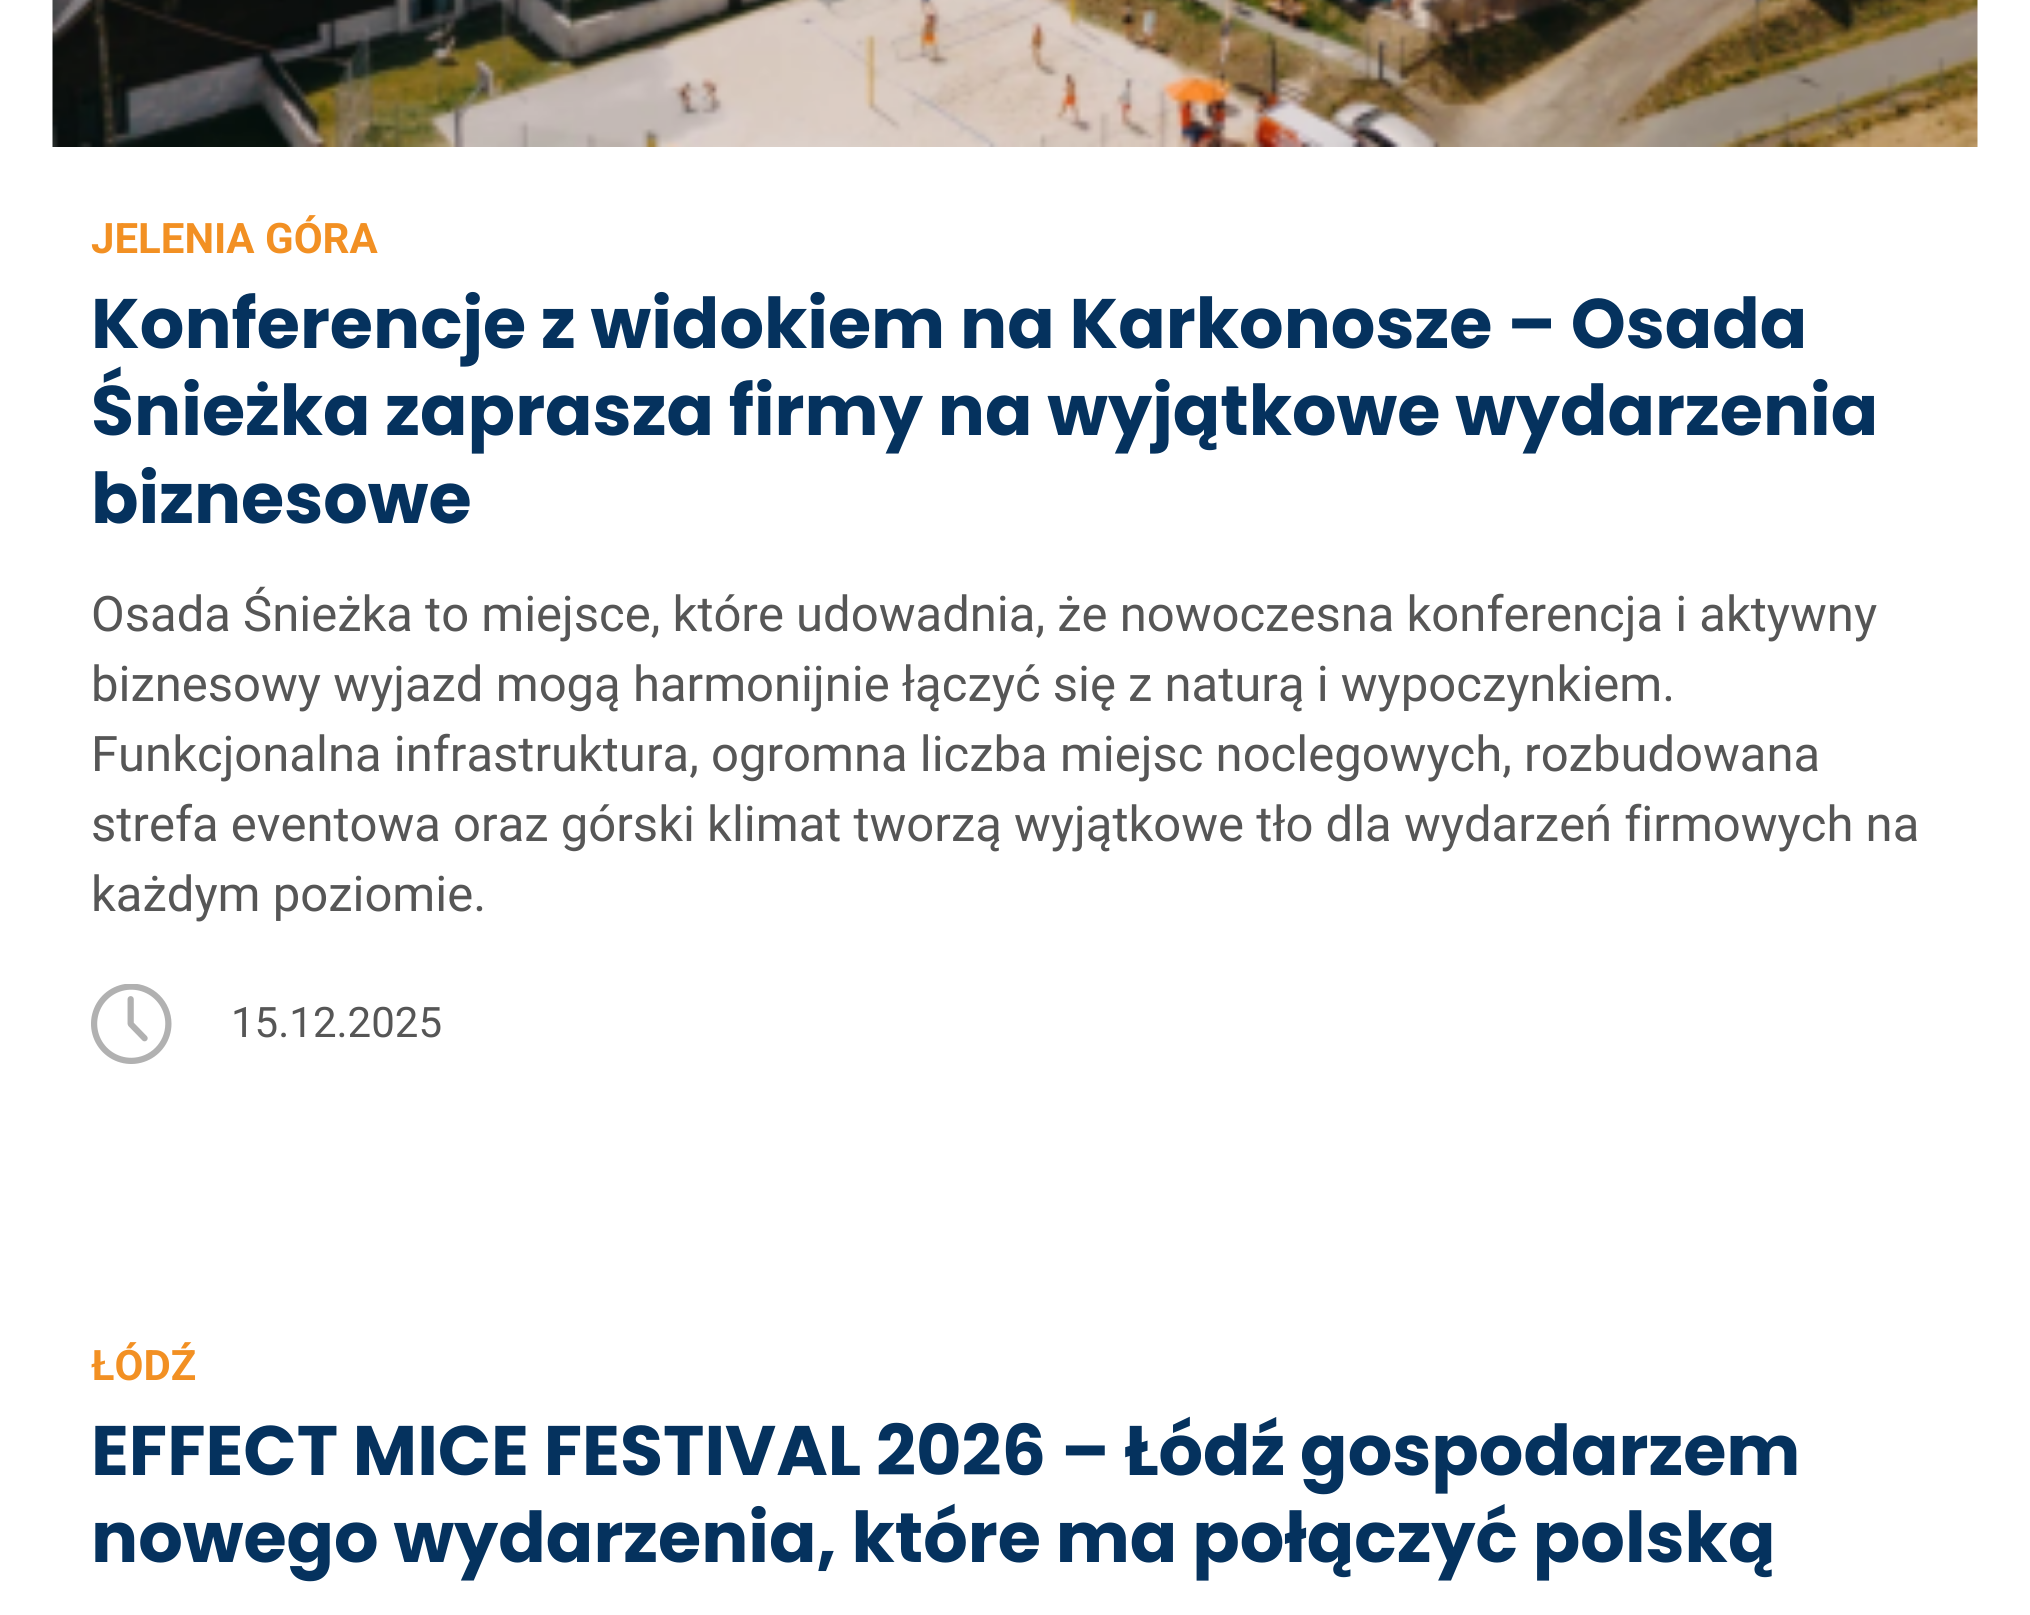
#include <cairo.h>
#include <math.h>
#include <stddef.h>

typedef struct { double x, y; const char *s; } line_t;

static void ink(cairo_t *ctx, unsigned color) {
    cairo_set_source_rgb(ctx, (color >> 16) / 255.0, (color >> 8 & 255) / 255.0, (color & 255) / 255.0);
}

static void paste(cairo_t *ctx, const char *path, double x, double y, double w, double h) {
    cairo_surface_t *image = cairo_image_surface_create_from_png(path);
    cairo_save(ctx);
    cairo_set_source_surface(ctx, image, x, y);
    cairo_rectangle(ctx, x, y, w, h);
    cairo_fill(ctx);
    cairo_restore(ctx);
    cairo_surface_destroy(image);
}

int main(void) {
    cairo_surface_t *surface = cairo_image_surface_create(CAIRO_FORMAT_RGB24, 2030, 1615);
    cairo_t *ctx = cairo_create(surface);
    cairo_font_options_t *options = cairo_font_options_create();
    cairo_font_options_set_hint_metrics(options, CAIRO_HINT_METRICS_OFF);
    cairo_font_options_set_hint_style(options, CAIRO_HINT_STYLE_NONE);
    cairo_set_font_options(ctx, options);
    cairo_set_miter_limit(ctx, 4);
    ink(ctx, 0xFFFFFF);
    cairo_paint(ctx);
    paste(ctx, "media/1.png", 52, 0, 1926, 147);
    cairo_select_font_face(ctx, "Roboto", CAIRO_FONT_SLANT_NORMAL, CAIRO_FONT_WEIGHT_BOLD);
    cairo_set_font_size(ctx, 42);
    ink(ctx, 0xF29023);
    cairo_move_to(ctx, 91, 253);
    cairo_show_text(ctx, "JELENIA GÓRA");
    cairo_select_font_face(ctx, "Poppins", CAIRO_FONT_SLANT_NORMAL, CAIRO_FONT_WEIGHT_BOLD);
    cairo_set_font_size(ctx, 70);
    ink(ctx, 0x05325E);
    {
        static const line_t items[] = {
            {91, 348, "Konferencje z widokiem na Karkonosze – Osada"},
            {91, 435, "Śnieżka zaprasza firmy na wyjątkowe wydarzenia"},
            {91, 523, "biznesowe"},
        };
        for (size_t i = 0; i < sizeof items / sizeof *items; i++) {
            cairo_move_to(ctx, items[i].x, items[i].y);
            cairo_show_text(ctx, items[i].s);
        }
    }
    cairo_select_font_face(ctx, "Roboto", CAIRO_FONT_SLANT_NORMAL, CAIRO_FONT_WEIGHT_NORMAL);
    cairo_set_font_size(ctx, 49);
    ink(ctx, 0x565656);
    {
        static const line_t items[] = {
            {91, 631, "Osada Śnieżka to miejsce, które udowadnia, że nowoczesna konferencja i aktywny"},
            {91, 701, "biznesowy wyjazd mogą harmonijnie łączyć się z naturą i wypoczynkiem."},
            {91, 771, "Funkcjonalna infrastruktura, ogromna liczba miejsc noclegowych, rozbudowana"},
            {91, 841, "strefa eventowa oraz górski klimat tworzą wyjątkowe tło dla wydarzeń firmowych na"},
            {91, 911, "każdym poziomie."},
        };
        for (size_t i = 0; i < sizeof items / sizeof *items; i++) {
            cairo_move_to(ctx, items[i].x, items[i].y);
            cairo_show_text(ctx, items[i].s);
        }
    }
    paste(ctx, "media/2.png", 91, 984, 81, 80);
    cairo_set_font_size(ctx, 42);
    cairo_move_to(ctx, 231, 1037);
    cairo_show_text(ctx, "15.12.2025");
    cairo_select_font_face(ctx, "Roboto", CAIRO_FONT_SLANT_NORMAL, CAIRO_FONT_WEIGHT_BOLD);
    ink(ctx, 0xF29023);
    cairo_move_to(ctx, 91, 1380);
    cairo_show_text(ctx, "ŁÓDŹ");
    cairo_select_font_face(ctx, "Poppins", CAIRO_FONT_SLANT_NORMAL, CAIRO_FONT_WEIGHT_BOLD);
    cairo_set_font_size(ctx, 70);
    ink(ctx, 0x05325E);
    cairo_move_to(ctx, 91, 1475);
    cairo_show_text(ctx, "EFFECT MICE FESTIVAL 2026 – Łódź gospodarzem");
    cairo_move_to(ctx, 91, 1562);
    cairo_show_text(ctx, "nowego wydarzenia, które ma połączyć polską");
    cairo_surface_write_to_png(surface, "image.png");
    cairo_font_options_destroy(options);
    cairo_destroy(ctx);
    cairo_surface_destroy(surface);
    return 0;
}
